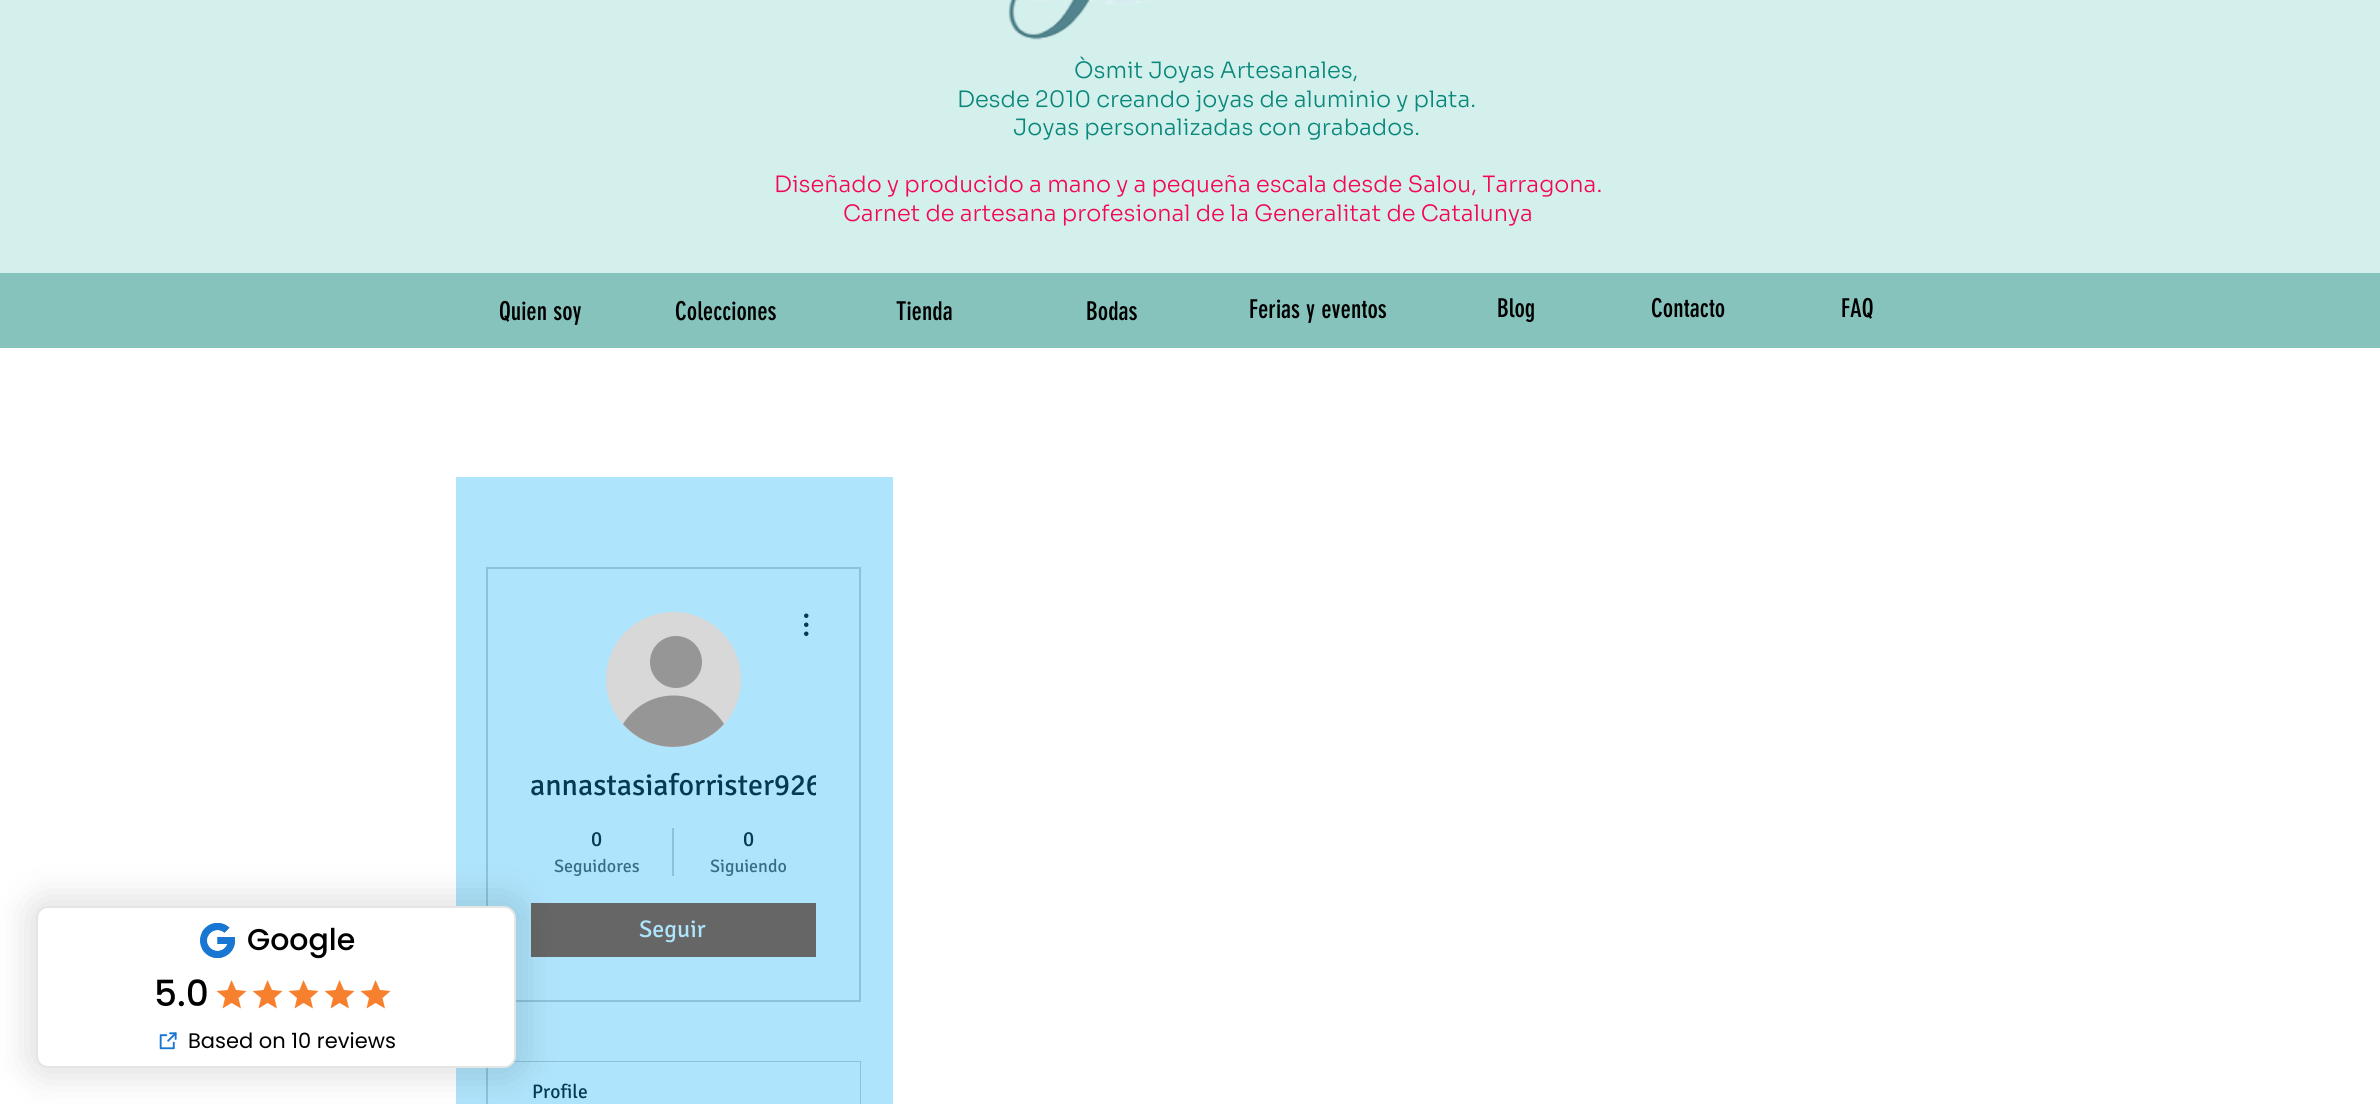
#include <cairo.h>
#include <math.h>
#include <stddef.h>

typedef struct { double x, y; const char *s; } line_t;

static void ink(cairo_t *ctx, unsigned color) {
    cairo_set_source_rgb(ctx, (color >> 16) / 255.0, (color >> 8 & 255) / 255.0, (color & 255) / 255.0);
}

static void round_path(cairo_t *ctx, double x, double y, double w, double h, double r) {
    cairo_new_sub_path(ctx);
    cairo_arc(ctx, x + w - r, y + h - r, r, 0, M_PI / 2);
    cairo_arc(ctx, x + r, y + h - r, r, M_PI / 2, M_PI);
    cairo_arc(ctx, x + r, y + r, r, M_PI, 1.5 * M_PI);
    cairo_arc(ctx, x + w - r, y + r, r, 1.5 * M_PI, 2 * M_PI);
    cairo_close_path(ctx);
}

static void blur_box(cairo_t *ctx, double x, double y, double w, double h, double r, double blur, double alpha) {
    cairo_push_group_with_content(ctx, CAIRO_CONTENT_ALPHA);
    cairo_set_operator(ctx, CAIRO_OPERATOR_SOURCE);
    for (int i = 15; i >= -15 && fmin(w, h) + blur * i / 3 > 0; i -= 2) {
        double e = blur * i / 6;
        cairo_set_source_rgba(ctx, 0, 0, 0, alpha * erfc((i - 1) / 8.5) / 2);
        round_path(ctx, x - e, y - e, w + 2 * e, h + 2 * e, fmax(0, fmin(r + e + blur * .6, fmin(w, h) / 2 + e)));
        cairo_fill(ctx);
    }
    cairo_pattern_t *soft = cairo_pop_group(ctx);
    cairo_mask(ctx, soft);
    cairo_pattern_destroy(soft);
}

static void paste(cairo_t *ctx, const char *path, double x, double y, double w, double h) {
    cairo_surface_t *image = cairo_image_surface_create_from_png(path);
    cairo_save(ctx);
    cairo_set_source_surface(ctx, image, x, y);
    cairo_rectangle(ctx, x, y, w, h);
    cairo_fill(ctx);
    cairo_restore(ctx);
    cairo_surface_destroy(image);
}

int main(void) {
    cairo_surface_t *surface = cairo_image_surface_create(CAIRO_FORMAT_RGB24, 2380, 1104);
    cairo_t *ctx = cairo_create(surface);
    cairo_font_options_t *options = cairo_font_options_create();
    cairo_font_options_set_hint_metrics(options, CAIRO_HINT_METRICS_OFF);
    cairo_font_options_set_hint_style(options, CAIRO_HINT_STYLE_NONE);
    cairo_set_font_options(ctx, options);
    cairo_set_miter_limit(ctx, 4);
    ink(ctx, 0xFFFFFF);
    cairo_paint(ctx);
    ink(ctx, 0xAEE4FC);
    cairo_rectangle(ctx, 456, 477, 437, 627);
    cairo_fill(ctx);
    cairo_rectangle(ctx, 487, 568, 373, 433);
    ink(ctx, 0x8CC2DA);
    cairo_stroke(ctx);
    ink(ctx, 0x666666);
    cairo_rectangle(ctx, 531, 903, 285, 54);
    cairo_fill(ctx);
    cairo_rectangle(ctx, 487, 1062, 373, 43);
    ink(ctx, 0x8CC2DA);
    cairo_stroke(ctx);
    ink(ctx, 0xAEE4FC);
    cairo_rectangle(ctx, 488, 1062, 372, 42);
    cairo_fill(ctx);
    ink(ctx, 0x000000);
    blur_box(ctx, 27, 897, 498, 180, 18, 18, 0.12);
    ink(ctx, 0xFFFFFF);
    round_path(ctx, 37, 907, 478, 160, 11);
    cairo_fill_preserve(ctx);
    ink(ctx, 0xE5E5E5);
    cairo_stroke(ctx);
    paste(ctx, "media/1.png", 200, 923, 35, 35);
    cairo_select_font_face(ctx, "Poppins Medium", CAIRO_FONT_SLANT_NORMAL, CAIRO_FONT_WEIGHT_NORMAL);
    cairo_set_font_size(ctx, 30);
    ink(ctx, 0x000000);
    cairo_move_to(ctx, 247, 950);
    cairo_show_text(ctx, "Google");
    cairo_set_font_size(ctx, 36);
    cairo_move_to(ctx, 154, 1006);
    cairo_show_text(ctx, "5.0");
    ink(ctx, 0xF7802F);
    cairo_new_path(ctx);
    cairo_move_to(ctx, 231.5, 1003);
    cairo_line_to(ctx, 241, 1008.5);
    cairo_line_to(ctx, 238.5, 998);
    cairo_line_to(ctx, 246.5, 991);
    cairo_line_to(ctx, 236, 990);
    cairo_line_to(ctx, 231.5, 980);
    cairo_line_to(ctx, 227.5, 990);
    cairo_line_to(ctx, 216.5, 991);
    cairo_line_to(ctx, 225, 998);
    cairo_line_to(ctx, 222.5, 1008.5);
    cairo_close_path(ctx);
    cairo_fill(ctx);
    cairo_new_path(ctx);
    cairo_move_to(ctx, 267.5, 1003);
    cairo_line_to(ctx, 277, 1008.5);
    cairo_line_to(ctx, 274.5, 998);
    cairo_line_to(ctx, 282.5, 991);
    cairo_line_to(ctx, 272, 990);
    cairo_line_to(ctx, 267.5, 980);
    cairo_line_to(ctx, 263.5, 990);
    cairo_line_to(ctx, 252.5, 991);
    cairo_line_to(ctx, 261, 998);
    cairo_line_to(ctx, 258.5, 1008.5);
    cairo_close_path(ctx);
    cairo_fill(ctx);
    cairo_new_path(ctx);
    cairo_move_to(ctx, 303.5, 1003);
    cairo_line_to(ctx, 313, 1008.5);
    cairo_line_to(ctx, 310.5, 998);
    cairo_line_to(ctx, 318.5, 991);
    cairo_line_to(ctx, 308, 990);
    cairo_line_to(ctx, 303.5, 980);
    cairo_line_to(ctx, 299.5, 990);
    cairo_line_to(ctx, 288.5, 991);
    cairo_line_to(ctx, 297, 998);
    cairo_line_to(ctx, 294.5, 1008.5);
    cairo_close_path(ctx);
    cairo_fill(ctx);
    cairo_new_path(ctx);
    cairo_move_to(ctx, 339.5, 1003);
    cairo_line_to(ctx, 349, 1008.5);
    cairo_line_to(ctx, 346.5, 998);
    cairo_line_to(ctx, 354.5, 991);
    cairo_line_to(ctx, 344, 990);
    cairo_line_to(ctx, 339.5, 980);
    cairo_line_to(ctx, 335.5, 990);
    cairo_line_to(ctx, 324.5, 991);
    cairo_line_to(ctx, 333, 998);
    cairo_line_to(ctx, 330.5, 1008.5);
    cairo_close_path(ctx);
    cairo_fill(ctx);
    cairo_new_path(ctx);
    cairo_move_to(ctx, 375.5, 1003);
    cairo_line_to(ctx, 385, 1008.5);
    cairo_line_to(ctx, 382.5, 998);
    cairo_line_to(ctx, 390.5, 991);
    cairo_line_to(ctx, 380, 990);
    cairo_line_to(ctx, 375.5, 980);
    cairo_line_to(ctx, 371.5, 990);
    cairo_line_to(ctx, 360.5, 991);
    cairo_line_to(ctx, 369, 998);
    cairo_line_to(ctx, 366.5, 1008.5);
    cairo_close_path(ctx);
    cairo_fill(ctx);
    paste(ctx, "media/2.png", 159, 1032, 18, 18);
    cairo_select_font_face(ctx, "Poppins", CAIRO_FONT_SLANT_NORMAL, CAIRO_FONT_WEIGHT_NORMAL);
    cairo_set_font_size(ctx, 21);
    ink(ctx, 0x000000);
    cairo_move_to(ctx, 188, 1048);
    cairo_show_text(ctx, "Based on 10 reviews");
    ink(ctx, 0xD4F0ED);
    cairo_rectangle(ctx, 0, 0, 2380, 273);
    cairo_fill(ctx);
    paste(ctx, "media/3.png", 1008, 0, 140, 40);
    cairo_select_font_face(ctx, "Sora Light", CAIRO_FONT_SLANT_NORMAL, CAIRO_FONT_WEIGHT_NORMAL);
    cairo_set_font_size(ctx, 22.5);
    ink(ctx, 0x08877A);
    {
        static const line_t items[] = {
            {1074, 78, "Òsmit Joyas Artesanales,"},
            {957, 107, "Desde 2010 creando joyas de aluminio y plata."},
            {1013, 135, "Joyas personalizadas con grabados."},
        };
        for (size_t i = 0; i < sizeof items / sizeof *items; i++) {
            cairo_move_to(ctx, items[i].x, items[i].y);
            cairo_show_text(ctx, items[i].s);
        }
    }
    ink(ctx, 0xF40752);
    cairo_move_to(ctx, 774, 192);
    cairo_show_text(ctx, "Diseñado y producido a mano y a pequeña escala desde Salou, Tarragona.");
    cairo_move_to(ctx, 843, 221);
    cairo_show_text(ctx, "Carnet de artesana profesional de la Generalitat de Catalunya");
    ink(ctx, 0x85C3BC);
    cairo_rectangle(ctx, 0, 273, 2380, 75);
    cairo_fill(ctx);
    cairo_select_font_face(ctx, "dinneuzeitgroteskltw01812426", CAIRO_FONT_SLANT_NORMAL, CAIRO_FONT_WEIGHT_NORMAL);
    cairo_set_font_size(ctx, 25.5);
    ink(ctx, 0x000000);
    {
        static const line_t items[] = {
            {499, 320, "Quien soy"},
            {675, 320, "Colecciones"},
            {896, 320, "Tienda"},
            {1086, 320, "Bodas"},
            {1249, 318, "Ferias y eventos"},
            {1497, 317, "Blog"},
            {1651, 317, "Contacto"},
            {1841, 317, "FAQ"},
        };
        for (size_t i = 0; i < sizeof items / sizeof *items; i++) {
            cairo_move_to(ctx, items[i].x, items[i].y);
            cairo_show_text(ctx, items[i].s);
        }
    }
    ink(ctx, 0xD8D8D8);
    cairo_new_path(ctx);
    cairo_arc(ctx, 673.5, 679.5, 67.5, 0, 2 * M_PI);
    cairo_fill(ctx);
    ink(ctx, 0x969696);
    cairo_arc(ctx, 676, 662, 26, 0, 2 * M_PI);
    cairo_fill(ctx);
    cairo_new_path(ctx);
    cairo_move_to(ctx, 724, 724);
    cairo_curve_to(ctx, 697, 754, 650, 755, 623, 724);
    cairo_curve_to(ctx, 647, 686, 700, 686, 724, 724);
    cairo_close_path(ctx);
    cairo_fill(ctx);
    paste(ctx, "media/4.png", 804, 613, 5, 23);
    cairo_save(ctx);
    cairo_rectangle(ctx, 531, 765, 285, 42);
    cairo_clip(ctx);
    cairo_select_font_face(ctx, "Signika", CAIRO_FONT_SLANT_NORMAL, CAIRO_FONT_WEIGHT_NORMAL);
    cairo_set_font_size(ctx, 30);
    ink(ctx, 0x053B52);
    cairo_move_to(ctx, 530, 795);
    cairo_show_text(ctx, "annastasiaforrister926");
    cairo_restore(ctx);
    cairo_select_font_face(ctx, "Signika", CAIRO_FONT_SLANT_NORMAL, CAIRO_FONT_WEIGHT_NORMAL);
    cairo_set_font_size(ctx, 21);
    ink(ctx, 0x053B52);
    cairo_move_to(ctx, 591, 846);
    cairo_show_text(ctx, "0");
    cairo_set_font_size(ctx, 18);
    ink(ctx, 0x386E85);
    cairo_move_to(ctx, 554, 872);
    cairo_show_text(ctx, "Seguidores");
    ink(ctx, 0x8CC2DA);
    cairo_rectangle(ctx, 672, 828, 2, 48);
    cairo_fill(ctx);
    cairo_set_font_size(ctx, 21);
    ink(ctx, 0x053B52);
    cairo_move_to(ctx, 743, 846);
    cairo_show_text(ctx, "0");
    cairo_set_font_size(ctx, 18);
    ink(ctx, 0x386E85);
    cairo_move_to(ctx, 710, 872);
    cairo_show_text(ctx, "Siguiendo");
    cairo_set_font_size(ctx, 24);
    ink(ctx, 0xAEE4FC);
    cairo_move_to(ctx, 639, 937);
    cairo_show_text(ctx, "Seguir");
    cairo_set_font_size(ctx, 19.5);
    ink(ctx, 0x053B52);
    cairo_move_to(ctx, 532, 1098);
    cairo_show_text(ctx, "Profile");
    cairo_surface_write_to_png(surface, "image.png");
    cairo_font_options_destroy(options);
    cairo_destroy(ctx);
    cairo_surface_destroy(surface);
    return 0;
}
